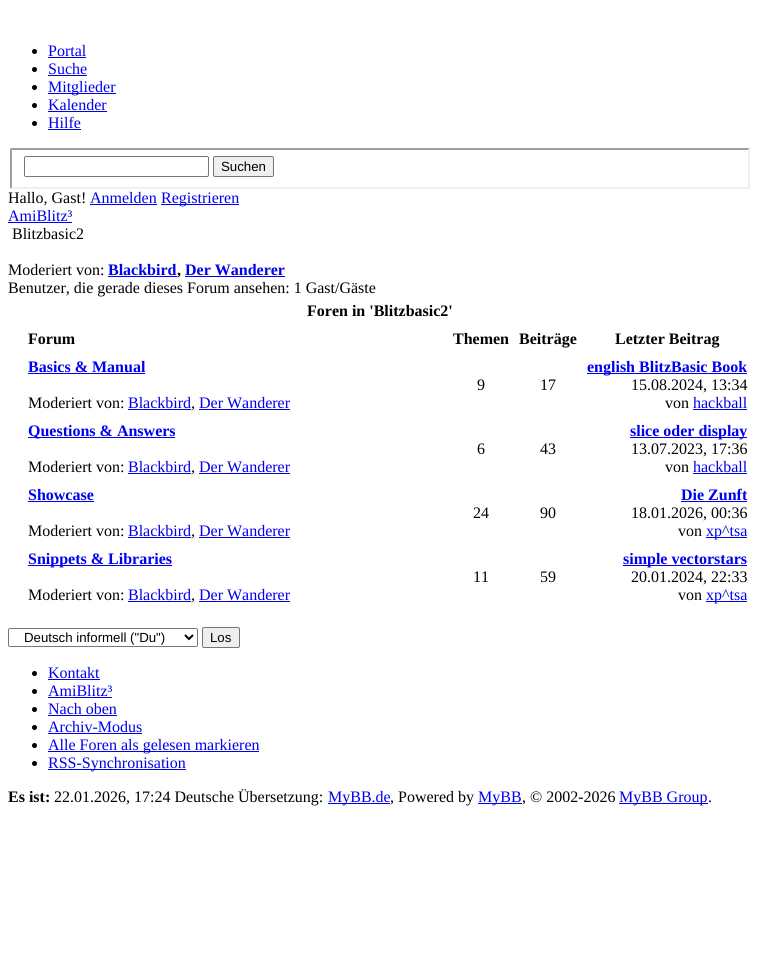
#include <cairo.h>
#include <math.h>
#include <stddef.h>

typedef struct { double x, y; const char *s; } line_t;

static void ink(cairo_t *ctx, unsigned color) {
    cairo_set_source_rgb(ctx, (color >> 16) / 255.0, (color >> 8 & 255) / 255.0, (color & 255) / 255.0);
}

static void round_path(cairo_t *ctx, double x, double y, double w, double h, double r) {
    cairo_new_sub_path(ctx);
    cairo_arc(ctx, x + w - r, y + h - r, r, 0, M_PI / 2);
    cairo_arc(ctx, x + r, y + h - r, r, M_PI / 2, M_PI);
    cairo_arc(ctx, x + r, y + r, r, M_PI, 1.5 * M_PI);
    cairo_arc(ctx, x + w - r, y + r, r, 1.5 * M_PI, 2 * M_PI);
    cairo_close_path(ctx);
}

int main(void) {
    cairo_surface_t *surface = cairo_image_surface_create(CAIRO_FORMAT_RGB24, 760, 968);
    cairo_t *ctx = cairo_create(surface);
    cairo_font_options_t *options = cairo_font_options_create();
    cairo_font_options_set_hint_metrics(options, CAIRO_HINT_METRICS_OFF);
    cairo_font_options_set_hint_style(options, CAIRO_HINT_STYLE_NONE);
    cairo_set_font_options(ctx, options);
    cairo_set_miter_limit(ctx, 4);
    ink(ctx, 0xFFFFFF);
    cairo_paint(ctx);
    ink(ctx, 0x000000);
    cairo_arc(ctx, 34.5, 51.5, 2.5, 0, 2 * M_PI);
    cairo_fill(ctx);
    cairo_select_font_face(ctx, "Liberation Serif", CAIRO_FONT_SLANT_NORMAL, CAIRO_FONT_WEIGHT_NORMAL);
    cairo_set_font_size(ctx, 16);
    ink(ctx, 0x0000EE);
    cairo_move_to(ctx, 48, 56);
    cairo_show_text(ctx, "Portal");
    cairo_rectangle(ctx, 48, 57, 38, 1);
    cairo_fill(ctx);
    ink(ctx, 0x000000);
    cairo_arc(ctx, 34.5, 69.5, 2.5, 0, 2 * M_PI);
    cairo_fill(ctx);
    ink(ctx, 0x0000EE);
    cairo_move_to(ctx, 48, 74);
    cairo_show_text(ctx, "Suche");
    cairo_rectangle(ctx, 48, 75, 39, 1);
    cairo_fill(ctx);
    ink(ctx, 0x000000);
    cairo_arc(ctx, 34.5, 87.5, 2.5, 0, 2 * M_PI);
    cairo_fill(ctx);
    ink(ctx, 0x0000EE);
    cairo_rectangle(ctx, 48, 93, 68, 1);
    cairo_fill(ctx);
    cairo_move_to(ctx, 48, 92);
    cairo_show_text(ctx, "Mitglieder");
    ink(ctx, 0x000000);
    cairo_new_path(ctx);
    cairo_arc(ctx, 34.5, 105.5, 2.5, 0, 2 * M_PI);
    cairo_fill(ctx);
    ink(ctx, 0x0000EE);
    cairo_move_to(ctx, 48, 110);
    cairo_show_text(ctx, "Kalender");
    cairo_rectangle(ctx, 48, 111, 59, 1);
    cairo_fill(ctx);
    ink(ctx, 0x000000);
    cairo_arc(ctx, 34.5, 123.5, 2.5, 0, 2 * M_PI);
    cairo_fill(ctx);
    ink(ctx, 0x0000EE);
    cairo_move_to(ctx, 48, 128);
    cairo_show_text(ctx, "Hilfe");
    cairo_rectangle(ctx, 48, 129, 33, 1);
    cairo_fill(ctx);
    ink(ctx, 0x9F9F9F);
    cairo_new_path(ctx);
    cairo_move_to(ctx, 10, 148);
    cairo_line_to(ctx, 750, 148);
    cairo_line_to(ctx, 748, 150);
    cairo_line_to(ctx, 12, 150);
    cairo_close_path(ctx);
    cairo_fill(ctx);
    ink(ctx, 0xEFEFEF);
    cairo_new_path(ctx);
    cairo_move_to(ctx, 750, 148);
    cairo_line_to(ctx, 750, 189);
    cairo_line_to(ctx, 748, 187);
    cairo_line_to(ctx, 748, 150);
    cairo_close_path(ctx);
    cairo_fill(ctx);
    cairo_new_path(ctx);
    cairo_move_to(ctx, 750, 189);
    cairo_line_to(ctx, 10, 189);
    cairo_line_to(ctx, 12, 187);
    cairo_line_to(ctx, 748, 187);
    cairo_close_path(ctx);
    cairo_fill(ctx);
    ink(ctx, 0x9F9F9F);
    cairo_new_path(ctx);
    cairo_move_to(ctx, 10, 189);
    cairo_line_to(ctx, 10, 148);
    cairo_line_to(ctx, 12, 150);
    cairo_line_to(ctx, 12, 187);
    cairo_close_path(ctx);
    cairo_fill(ctx);
    round_path(ctx, 24.5, 156.5, 184, 20, 1.5);
    ink(ctx, 0x767676);
    cairo_set_line_width(ctx, 1);
    cairo_stroke(ctx);
    ink(ctx, 0xEFEFEF);
    round_path(ctx, 213.5, 156.5, 60, 20, 1.5);
    cairo_fill_preserve(ctx);
    ink(ctx, 0x767676);
    cairo_stroke(ctx);
    cairo_select_font_face(ctx, "Liberation Sans", CAIRO_FONT_SLANT_NORMAL, CAIRO_FONT_WEIGHT_NORMAL);
    cairo_set_font_size(ctx, 13.25);
    ink(ctx, 0x000000);
    cairo_move_to(ctx, 221, 171);
    cairo_show_text(ctx, "Suchen");
    cairo_select_font_face(ctx, "Liberation Serif", CAIRO_FONT_SLANT_NORMAL, CAIRO_FONT_WEIGHT_NORMAL);
    cairo_set_font_size(ctx, 16);
    cairo_move_to(ctx, 8, 203);
    cairo_show_text(ctx, "Hallo, Gast!");
    ink(ctx, 0x0000EE);
    cairo_move_to(ctx, 90, 203);
    cairo_show_text(ctx, "Anmelden");
    cairo_rectangle(ctx, 90, 204, 67, 1);
    cairo_fill(ctx);
    cairo_rectangle(ctx, 161, 204, 78, 1);
    cairo_fill(ctx);
    cairo_move_to(ctx, 161, 203);
    cairo_show_text(ctx, "Registrieren");
    cairo_move_to(ctx, 8, 221);
    cairo_show_text(ctx, "AmiBlitz³");
    cairo_rectangle(ctx, 8, 222, 64, 1);
    cairo_fill(ctx);
    ink(ctx, 0x000000);
    cairo_move_to(ctx, 12, 239);
    cairo_show_text(ctx, "Blitzbasic2");
    cairo_move_to(ctx, 8, 275);
    cairo_show_text(ctx, "Moderiert von:");
    cairo_select_font_face(ctx, "Liberation Serif", CAIRO_FONT_SLANT_NORMAL, CAIRO_FONT_WEIGHT_BOLD);
    ink(ctx, 0x0000EE);
    cairo_move_to(ctx, 108, 275);
    cairo_show_text(ctx, "Blackbird");
    ink(ctx, 0x000000);
    cairo_move_to(ctx, 177, 275);
    cairo_show_text(ctx, ",");
    ink(ctx, 0x0000EE);
    cairo_rectangle(ctx, 108, 276, 69, 1);
    cairo_fill(ctx);
    cairo_rectangle(ctx, 185, 276, 100, 1);
    cairo_fill(ctx);
    cairo_move_to(ctx, 185, 275);
    cairo_show_text(ctx, "Der Wanderer");
    cairo_select_font_face(ctx, "Liberation Serif", CAIRO_FONT_SLANT_NORMAL, CAIRO_FONT_WEIGHT_NORMAL);
    ink(ctx, 0x000000);
    cairo_move_to(ctx, 8, 293);
    cairo_show_text(ctx, "Benutzer, die gerade dieses Forum ansehen: 1 Gast/Gäste");
    cairo_select_font_face(ctx, "Liberation Serif", CAIRO_FONT_SLANT_NORMAL, CAIRO_FONT_WEIGHT_BOLD);
    {
        static const line_t items[] = {
            {307, 316, "Foren in 'Blitzbasic2'"},
            {28, 344, "Forum"},
            {453, 344, "Themen"},
            {519, 344, "Beiträge"},
            {615, 344, "Letzter Beitrag"},
        };
        for (size_t i = 0; i < sizeof items / sizeof *items; i++) {
            cairo_move_to(ctx, items[i].x, items[i].y);
            cairo_show_text(ctx, items[i].s);
        }
    }
    ink(ctx, 0x0000EE);
    cairo_move_to(ctx, 28, 372);
    cairo_show_text(ctx, "Basics & Manual");
    cairo_rectangle(ctx, 28, 373, 117, 1);
    cairo_fill(ctx);
    cairo_select_font_face(ctx, "Liberation Serif", CAIRO_FONT_SLANT_NORMAL, CAIRO_FONT_WEIGHT_NORMAL);
    ink(ctx, 0x000000);
    cairo_move_to(ctx, 28, 408);
    cairo_show_text(ctx, "Moderiert von:");
    ink(ctx, 0x0000EE);
    cairo_move_to(ctx, 128, 408);
    cairo_show_text(ctx, "Blackbird");
    cairo_rectangle(ctx, 128, 409, 63, 1);
    cairo_fill(ctx);
    ink(ctx, 0x000000);
    cairo_move_to(ctx, 191, 408);
    cairo_show_text(ctx, ",");
    ink(ctx, 0x0000EE);
    cairo_move_to(ctx, 199, 408);
    cairo_show_text(ctx, "Der Wanderer");
    cairo_rectangle(ctx, 199, 409, 91, 1);
    cairo_fill(ctx);
    ink(ctx, 0x000000);
    cairo_move_to(ctx, 477, 390);
    cairo_show_text(ctx, "9");
    cairo_move_to(ctx, 540, 390);
    cairo_show_text(ctx, "17");
    ink(ctx, 0x0000EE);
    cairo_rectangle(ctx, 587, 373, 160, 1);
    cairo_fill(ctx);
    cairo_select_font_face(ctx, "Liberation Serif", CAIRO_FONT_SLANT_NORMAL, CAIRO_FONT_WEIGHT_BOLD);
    cairo_move_to(ctx, 587, 372);
    cairo_show_text(ctx, "english BlitzBasic Book");
    cairo_select_font_face(ctx, "Liberation Serif", CAIRO_FONT_SLANT_NORMAL, CAIRO_FONT_WEIGHT_NORMAL);
    ink(ctx, 0x000000);
    cairo_move_to(ctx, 631, 390);
    cairo_show_text(ctx, "15.08.2024, 13:34");
    cairo_move_to(ctx, 665, 408);
    cairo_show_text(ctx, "von");
    ink(ctx, 0x0000EE);
    cairo_rectangle(ctx, 693, 409, 54, 1);
    cairo_fill(ctx);
    cairo_move_to(ctx, 693, 408);
    cairo_show_text(ctx, "hackball");
    cairo_rectangle(ctx, 28, 437, 147, 1);
    cairo_fill(ctx);
    cairo_select_font_face(ctx, "Liberation Serif", CAIRO_FONT_SLANT_NORMAL, CAIRO_FONT_WEIGHT_BOLD);
    cairo_move_to(ctx, 28, 436);
    cairo_show_text(ctx, "Questions & Answers");
    cairo_select_font_face(ctx, "Liberation Serif", CAIRO_FONT_SLANT_NORMAL, CAIRO_FONT_WEIGHT_NORMAL);
    ink(ctx, 0x000000);
    cairo_move_to(ctx, 28, 472);
    cairo_show_text(ctx, "Moderiert von:");
    ink(ctx, 0x0000EE);
    cairo_move_to(ctx, 128, 472);
    cairo_show_text(ctx, "Blackbird");
    cairo_rectangle(ctx, 128, 473, 63, 1);
    cairo_fill(ctx);
    ink(ctx, 0x000000);
    cairo_move_to(ctx, 191, 472);
    cairo_show_text(ctx, ",");
    ink(ctx, 0x0000EE);
    cairo_move_to(ctx, 199, 472);
    cairo_show_text(ctx, "Der Wanderer");
    cairo_rectangle(ctx, 199, 473, 91, 1);
    cairo_fill(ctx);
    ink(ctx, 0x000000);
    cairo_move_to(ctx, 477, 454);
    cairo_show_text(ctx, "6");
    cairo_move_to(ctx, 540, 454);
    cairo_show_text(ctx, "43");
    ink(ctx, 0x0000EE);
    cairo_rectangle(ctx, 630, 437, 117, 1);
    cairo_fill(ctx);
    cairo_select_font_face(ctx, "Liberation Serif", CAIRO_FONT_SLANT_NORMAL, CAIRO_FONT_WEIGHT_BOLD);
    cairo_move_to(ctx, 630, 436);
    cairo_show_text(ctx, "slice oder display");
    cairo_select_font_face(ctx, "Liberation Serif", CAIRO_FONT_SLANT_NORMAL, CAIRO_FONT_WEIGHT_NORMAL);
    ink(ctx, 0x000000);
    cairo_move_to(ctx, 631, 454);
    cairo_show_text(ctx, "13.07.2023, 17:36");
    cairo_move_to(ctx, 665, 472);
    cairo_show_text(ctx, "von");
    ink(ctx, 0x0000EE);
    cairo_rectangle(ctx, 693, 473, 54, 1);
    cairo_fill(ctx);
    cairo_move_to(ctx, 693, 472);
    cairo_show_text(ctx, "hackball");
    cairo_select_font_face(ctx, "Liberation Serif", CAIRO_FONT_SLANT_NORMAL, CAIRO_FONT_WEIGHT_BOLD);
    cairo_move_to(ctx, 28, 500);
    cairo_show_text(ctx, "Showcase");
    cairo_rectangle(ctx, 28, 501, 66, 1);
    cairo_fill(ctx);
    cairo_select_font_face(ctx, "Liberation Serif", CAIRO_FONT_SLANT_NORMAL, CAIRO_FONT_WEIGHT_NORMAL);
    ink(ctx, 0x000000);
    cairo_move_to(ctx, 28, 536);
    cairo_show_text(ctx, "Moderiert von:");
    ink(ctx, 0x0000EE);
    cairo_move_to(ctx, 128, 536);
    cairo_show_text(ctx, "Blackbird");
    cairo_rectangle(ctx, 128, 537, 63, 1);
    cairo_fill(ctx);
    ink(ctx, 0x000000);
    cairo_move_to(ctx, 191, 536);
    cairo_show_text(ctx, ",");
    ink(ctx, 0x0000EE);
    cairo_move_to(ctx, 199, 536);
    cairo_show_text(ctx, "Der Wanderer");
    cairo_rectangle(ctx, 199, 537, 91, 1);
    cairo_fill(ctx);
    ink(ctx, 0x000000);
    cairo_move_to(ctx, 473, 518);
    cairo_show_text(ctx, "24");
    cairo_move_to(ctx, 540, 518);
    cairo_show_text(ctx, "90");
    cairo_select_font_face(ctx, "Liberation Serif", CAIRO_FONT_SLANT_NORMAL, CAIRO_FONT_WEIGHT_BOLD);
    ink(ctx, 0x0000EE);
    cairo_move_to(ctx, 681, 500);
    cairo_show_text(ctx, "Die Zunft");
    cairo_rectangle(ctx, 681, 501, 66, 1);
    cairo_fill(ctx);
    cairo_select_font_face(ctx, "Liberation Serif", CAIRO_FONT_SLANT_NORMAL, CAIRO_FONT_WEIGHT_NORMAL);
    ink(ctx, 0x000000);
    cairo_move_to(ctx, 631, 518);
    cairo_show_text(ctx, "18.01.2026, 00:36");
    cairo_move_to(ctx, 678, 536);
    cairo_show_text(ctx, "von");
    ink(ctx, 0x0000EE);
    cairo_rectangle(ctx, 706, 537, 41, 1);
    cairo_fill(ctx);
    cairo_move_to(ctx, 706, 536);
    cairo_show_text(ctx, "xp^tsa");
    cairo_rectangle(ctx, 28, 565, 144, 1);
    cairo_fill(ctx);
    cairo_select_font_face(ctx, "Liberation Serif", CAIRO_FONT_SLANT_NORMAL, CAIRO_FONT_WEIGHT_BOLD);
    cairo_move_to(ctx, 28, 564);
    cairo_show_text(ctx, "Snippets & Libraries");
    cairo_select_font_face(ctx, "Liberation Serif", CAIRO_FONT_SLANT_NORMAL, CAIRO_FONT_WEIGHT_NORMAL);
    ink(ctx, 0x000000);
    cairo_move_to(ctx, 28, 600);
    cairo_show_text(ctx, "Moderiert von:");
    ink(ctx, 0x0000EE);
    cairo_move_to(ctx, 128, 600);
    cairo_show_text(ctx, "Blackbird");
    cairo_rectangle(ctx, 128, 601, 63, 1);
    cairo_fill(ctx);
    ink(ctx, 0x000000);
    cairo_move_to(ctx, 191, 600);
    cairo_show_text(ctx, ",");
    ink(ctx, 0x0000EE);
    cairo_move_to(ctx, 199, 600);
    cairo_show_text(ctx, "Der Wanderer");
    cairo_rectangle(ctx, 199, 601, 91, 1);
    cairo_fill(ctx);
    ink(ctx, 0x000000);
    cairo_move_to(ctx, 473, 582);
    cairo_show_text(ctx, "11");
    cairo_move_to(ctx, 540, 582);
    cairo_show_text(ctx, "59");
    ink(ctx, 0x0000EE);
    cairo_rectangle(ctx, 623, 565, 124, 1);
    cairo_fill(ctx);
    cairo_select_font_face(ctx, "Liberation Serif", CAIRO_FONT_SLANT_NORMAL, CAIRO_FONT_WEIGHT_BOLD);
    cairo_move_to(ctx, 623, 564);
    cairo_show_text(ctx, "simple vectorstars");
    cairo_select_font_face(ctx, "Liberation Serif", CAIRO_FONT_SLANT_NORMAL, CAIRO_FONT_WEIGHT_NORMAL);
    ink(ctx, 0x000000);
    cairo_move_to(ctx, 631, 582);
    cairo_show_text(ctx, "20.01.2024, 22:33");
    cairo_move_to(ctx, 678, 600);
    cairo_show_text(ctx, "von");
    ink(ctx, 0x0000EE);
    cairo_rectangle(ctx, 706, 601, 41, 1);
    cairo_fill(ctx);
    cairo_move_to(ctx, 706, 600);
    cairo_show_text(ctx, "xp^tsa");
    round_path(ctx, 8.5, 628.5, 189, 18, 1.5);
    ink(ctx, 0x767676);
    cairo_stroke(ctx);
    cairo_new_path(ctx);
    cairo_move_to(ctx, 185, 635);
    cairo_line_to(ctx, 189, 639);
    cairo_line_to(ctx, 193, 635);
    ink(ctx, 0x000000);
    cairo_set_line_width(ctx, 2);
    cairo_stroke(ctx);
    cairo_select_font_face(ctx, "Liberation Sans", CAIRO_FONT_SLANT_NORMAL, CAIRO_FONT_WEIGHT_NORMAL);
    cairo_set_font_size(ctx, 13.25);
    cairo_move_to(ctx, 24, 642);
    cairo_show_text(ctx, "Deutsch informell (\"Du\")");
    ink(ctx, 0xEFEFEF);
    round_path(ctx, 202.5, 627.5, 37, 20, 1.5);
    cairo_fill_preserve(ctx);
    ink(ctx, 0x767676);
    cairo_set_line_width(ctx, 1);
    cairo_stroke(ctx);
    ink(ctx, 0x000000);
    cairo_move_to(ctx, 210, 642);
    cairo_show_text(ctx, "Los");
    cairo_new_path(ctx);
    cairo_arc(ctx, 34.5, 673.5, 2.5, 0, 2 * M_PI);
    cairo_fill(ctx);
    cairo_select_font_face(ctx, "Liberation Serif", CAIRO_FONT_SLANT_NORMAL, CAIRO_FONT_WEIGHT_NORMAL);
    cairo_set_font_size(ctx, 16);
    ink(ctx, 0x0000EE);
    cairo_move_to(ctx, 48, 678);
    cairo_show_text(ctx, "Kontakt");
    cairo_rectangle(ctx, 48, 679, 52, 1);
    cairo_fill(ctx);
    ink(ctx, 0x000000);
    cairo_arc(ctx, 34.5, 691.5, 2.5, 0, 2 * M_PI);
    cairo_fill(ctx);
    ink(ctx, 0x0000EE);
    cairo_move_to(ctx, 48, 696);
    cairo_show_text(ctx, "AmiBlitz³");
    cairo_rectangle(ctx, 48, 697, 64, 1);
    cairo_fill(ctx);
    ink(ctx, 0x000000);
    cairo_arc(ctx, 34.5, 709.5, 2.5, 0, 2 * M_PI);
    cairo_fill(ctx);
    ink(ctx, 0x0000EE);
    cairo_move_to(ctx, 48, 714);
    cairo_show_text(ctx, "Nach oben");
    cairo_rectangle(ctx, 48, 715, 69, 1);
    cairo_fill(ctx);
    ink(ctx, 0x000000);
    cairo_arc(ctx, 34.5, 727.5, 2.5, 0, 2 * M_PI);
    cairo_fill(ctx);
    ink(ctx, 0x0000EE);
    cairo_move_to(ctx, 48, 732);
    cairo_show_text(ctx, "Archiv-Modus");
    cairo_rectangle(ctx, 48, 733, 94, 1);
    cairo_fill(ctx);
    ink(ctx, 0x000000);
    cairo_arc(ctx, 34.5, 745.5, 2.5, 0, 2 * M_PI);
    cairo_fill(ctx);
    ink(ctx, 0x0000EE);
    cairo_rectangle(ctx, 48, 751, 211, 1);
    cairo_fill(ctx);
    cairo_move_to(ctx, 48, 750);
    cairo_show_text(ctx, "Alle Foren als gelesen markieren");
    ink(ctx, 0x000000);
    cairo_new_path(ctx);
    cairo_arc(ctx, 34.5, 763.5, 2.5, 0, 2 * M_PI);
    cairo_fill(ctx);
    ink(ctx, 0x0000EE);
    cairo_rectangle(ctx, 48, 769, 138, 1);
    cairo_fill(ctx);
    cairo_move_to(ctx, 48, 768);
    cairo_show_text(ctx, "RSS-Synchronisation");
    cairo_select_font_face(ctx, "Liberation Serif", CAIRO_FONT_SLANT_NORMAL, CAIRO_FONT_WEIGHT_BOLD);
    ink(ctx, 0x000000);
    cairo_move_to(ctx, 8, 802);
    cairo_show_text(ctx, "Es ist:");
    cairo_select_font_face(ctx, "Liberation Serif", CAIRO_FONT_SLANT_NORMAL, CAIRO_FONT_WEIGHT_NORMAL);
    cairo_move_to(ctx, 54, 802);
    cairo_show_text(ctx, "22.01.2026, 17:24 Deutsche Übersetzung:");
    ink(ctx, 0x0000EE);
    cairo_rectangle(ctx, 328, 803, 62, 1);
    cairo_fill(ctx);
    cairo_move_to(ctx, 328, 802);
    cairo_show_text(ctx, "MyBB.de");
    ink(ctx, 0x000000);
    cairo_move_to(ctx, 390, 802);
    cairo_show_text(ctx, ", Powered by");
    ink(ctx, 0x0000EE);
    cairo_rectangle(ctx, 478, 803, 44, 1);
    cairo_fill(ctx);
    cairo_move_to(ctx, 478, 802);
    cairo_show_text(ctx, "MyBB");
    ink(ctx, 0x000000);
    cairo_move_to(ctx, 522, 802);
    cairo_show_text(ctx, ", © 2002-2026");
    ink(ctx, 0x0000EE);
    cairo_rectangle(ctx, 619, 803, 89, 1);
    cairo_fill(ctx);
    cairo_move_to(ctx, 619, 802);
    cairo_show_text(ctx, "MyBB Group");
    ink(ctx, 0x000000);
    cairo_move_to(ctx, 708, 802);
    cairo_show_text(ctx, ".");
    cairo_surface_write_to_png(surface, "image.png");
    cairo_font_options_destroy(options);
    cairo_destroy(ctx);
    cairo_surface_destroy(surface);
    return 0;
}
